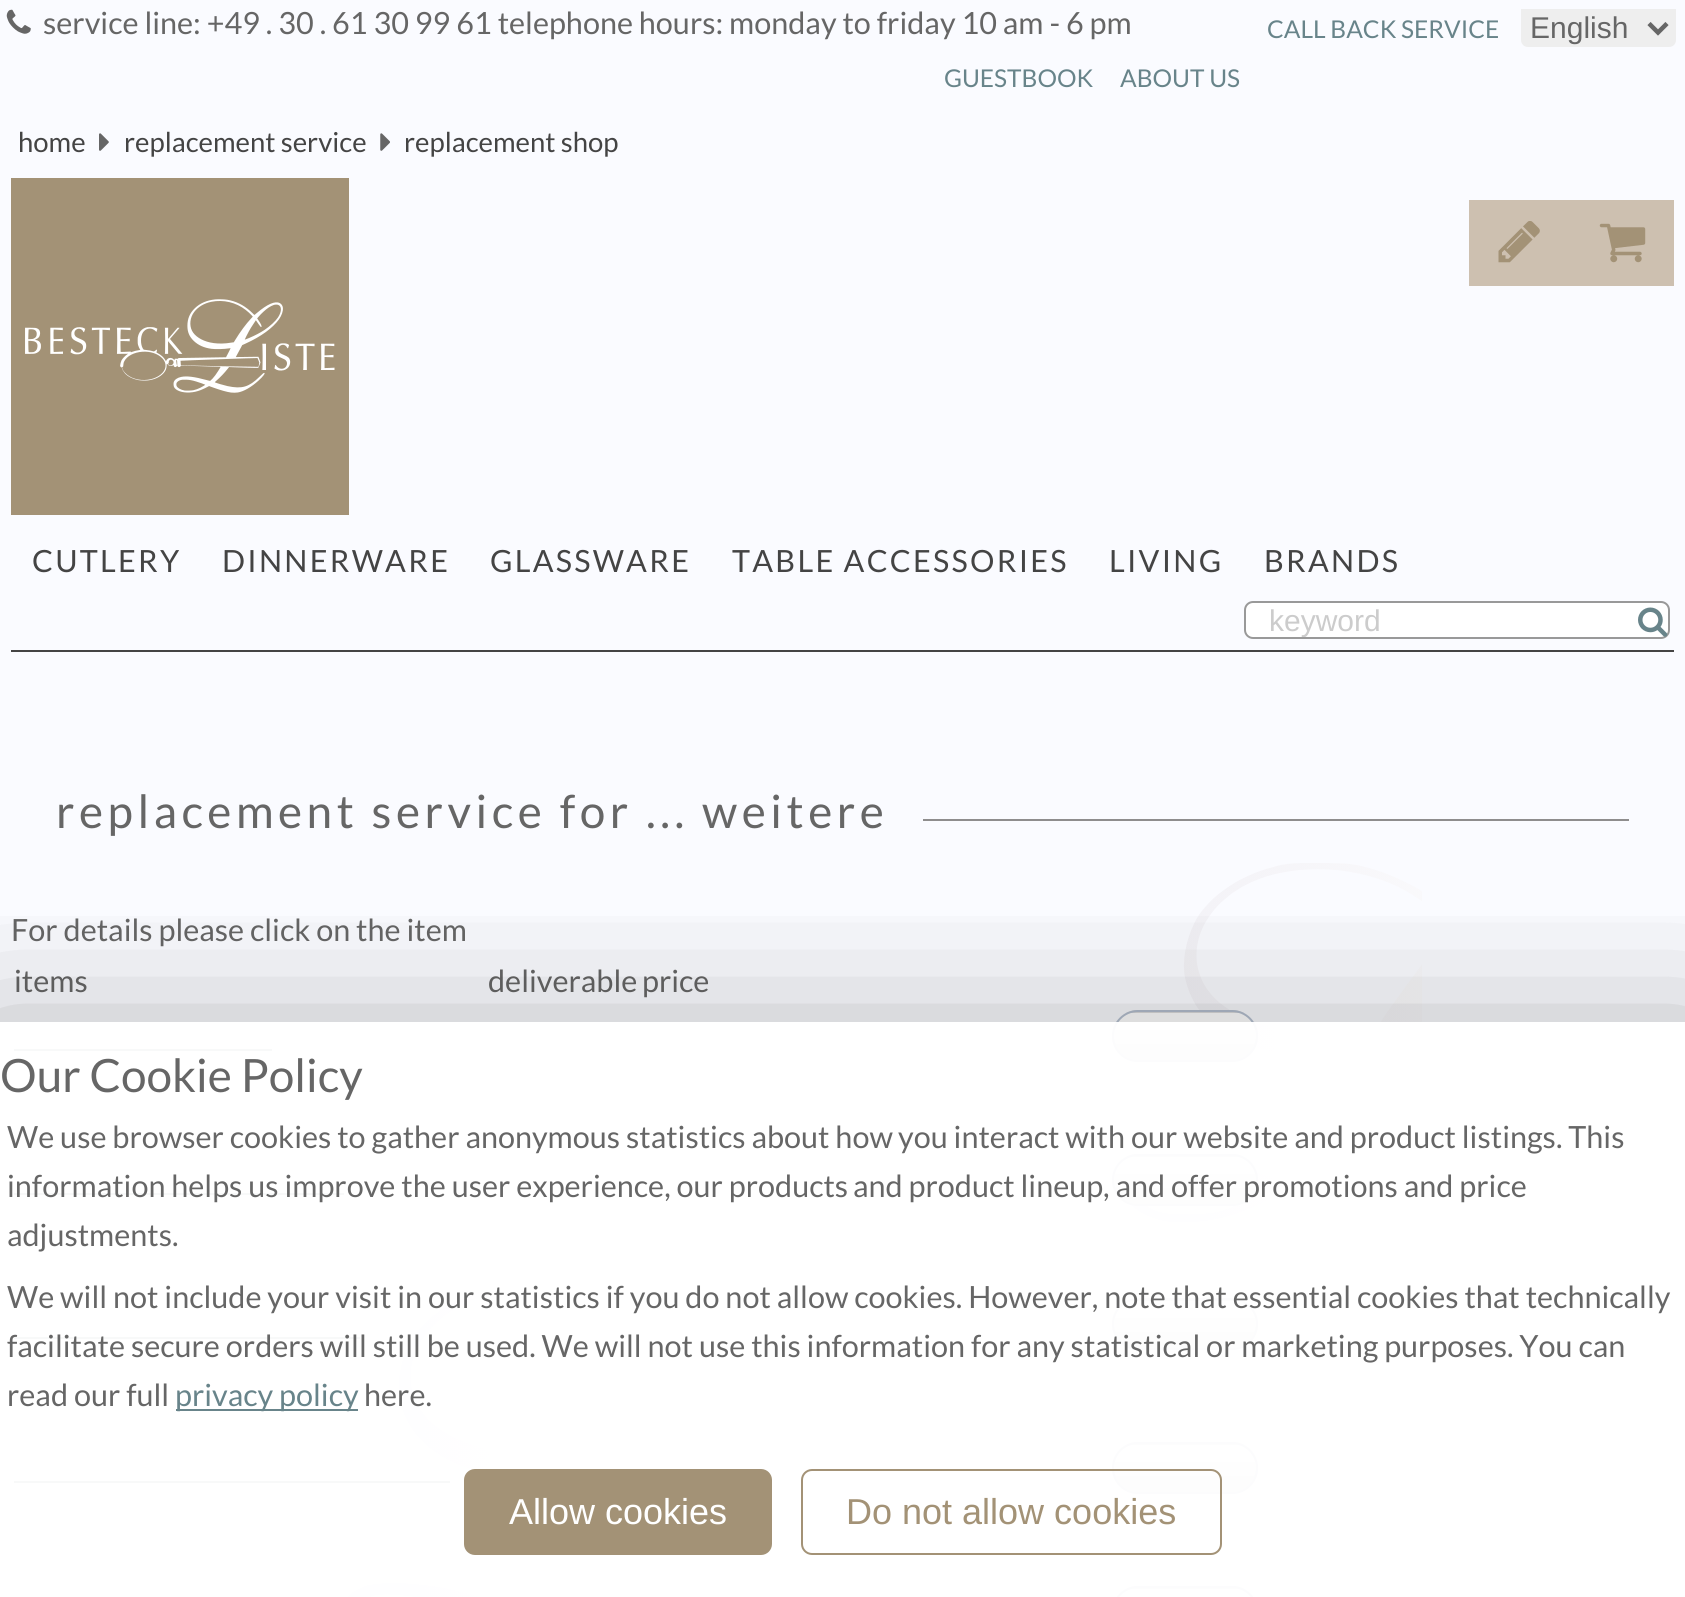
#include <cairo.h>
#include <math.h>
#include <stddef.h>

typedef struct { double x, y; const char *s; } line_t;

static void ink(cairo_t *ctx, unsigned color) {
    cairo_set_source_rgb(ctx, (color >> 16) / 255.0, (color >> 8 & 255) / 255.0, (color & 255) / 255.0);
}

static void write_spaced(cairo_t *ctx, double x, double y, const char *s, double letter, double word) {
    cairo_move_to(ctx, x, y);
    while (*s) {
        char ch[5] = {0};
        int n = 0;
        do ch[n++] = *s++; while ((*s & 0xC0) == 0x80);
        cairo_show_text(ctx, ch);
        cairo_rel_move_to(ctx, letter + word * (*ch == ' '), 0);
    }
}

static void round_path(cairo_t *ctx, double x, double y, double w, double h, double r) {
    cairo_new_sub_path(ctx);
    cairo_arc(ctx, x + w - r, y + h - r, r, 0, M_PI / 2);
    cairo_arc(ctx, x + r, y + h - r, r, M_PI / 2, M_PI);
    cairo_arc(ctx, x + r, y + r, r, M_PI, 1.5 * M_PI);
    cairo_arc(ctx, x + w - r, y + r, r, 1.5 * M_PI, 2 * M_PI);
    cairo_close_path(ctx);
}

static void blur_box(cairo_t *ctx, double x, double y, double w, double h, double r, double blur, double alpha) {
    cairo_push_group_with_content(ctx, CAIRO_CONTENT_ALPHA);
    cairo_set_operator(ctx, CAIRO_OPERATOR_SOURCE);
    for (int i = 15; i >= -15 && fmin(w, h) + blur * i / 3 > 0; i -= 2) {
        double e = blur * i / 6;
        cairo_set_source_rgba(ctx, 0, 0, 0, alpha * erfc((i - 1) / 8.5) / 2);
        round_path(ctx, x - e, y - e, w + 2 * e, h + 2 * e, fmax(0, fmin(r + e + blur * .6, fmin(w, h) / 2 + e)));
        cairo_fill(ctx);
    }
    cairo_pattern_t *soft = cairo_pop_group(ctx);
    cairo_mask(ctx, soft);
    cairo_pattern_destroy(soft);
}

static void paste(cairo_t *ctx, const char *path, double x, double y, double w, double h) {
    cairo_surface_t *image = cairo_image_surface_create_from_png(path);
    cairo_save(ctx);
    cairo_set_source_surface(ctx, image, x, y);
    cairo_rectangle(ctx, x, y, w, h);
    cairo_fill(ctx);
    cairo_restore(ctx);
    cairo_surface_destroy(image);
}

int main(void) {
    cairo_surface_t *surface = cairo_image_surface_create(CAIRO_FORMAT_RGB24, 1685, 1597);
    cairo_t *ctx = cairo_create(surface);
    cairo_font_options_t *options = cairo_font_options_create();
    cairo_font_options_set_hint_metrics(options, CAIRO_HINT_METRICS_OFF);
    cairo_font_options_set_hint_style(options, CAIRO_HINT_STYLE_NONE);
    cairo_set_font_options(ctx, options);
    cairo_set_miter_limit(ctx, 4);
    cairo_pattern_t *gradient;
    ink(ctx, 0xFAFBFF);
    cairo_paint(ctx);
    paste(ctx, "media/1.png", 6, 9, 25, 25);
    cairo_select_font_face(ctx, "Lato", CAIRO_FONT_SLANT_NORMAL, CAIRO_FONT_WEIGHT_NORMAL);
    cairo_set_font_size(ctx, 30.6);
    ink(ctx, 0x666666);
    cairo_move_to(ctx, 43, 34);
    cairo_show_text(ctx, "service line: +49 . 30 . 61 30 99 61 telephone hours: monday to friday 10 am - 6 pm");
    cairo_set_font_size(ctx, 24.5);
    ink(ctx, 0x68848A);
    cairo_move_to(ctx, 1267, 38);
    cairo_show_text(ctx, "CALL BACK SERVICE");
    ink(ctx, 0xEEEEEE);
    cairo_new_path(ctx);
    cairo_move_to(ctx, 1521, 9);
    cairo_line_to(ctx, 1676, 9);
    cairo_line_to(ctx, 1676, 40);
    cairo_curve_to(ctx, 1676, 44, 1673, 47, 1669, 47);
    cairo_line_to(ctx, 1528, 47);
    cairo_curve_to(ctx, 1524, 47, 1521, 44, 1521, 40);
    cairo_close_path(ctx);
    cairo_fill(ctx);
    cairo_new_path(ctx);
    cairo_move_to(ctx, 1649, 23.5);
    cairo_line_to(ctx, 1658, 32.5);
    cairo_line_to(ctx, 1667, 23.5);
    ink(ctx, 0x666666);
    cairo_set_line_width(ctx, 4.5);
    cairo_stroke(ctx);
    cairo_select_font_face(ctx, "Liberation Sans", CAIRO_FONT_SLANT_NORMAL, CAIRO_FONT_WEIGHT_NORMAL);
    cairo_set_font_size(ctx, 30);
    cairo_move_to(ctx, 1530, 38);
    cairo_show_text(ctx, "English");
    cairo_select_font_face(ctx, "Lato", CAIRO_FONT_SLANT_NORMAL, CAIRO_FONT_WEIGHT_NORMAL);
    cairo_set_font_size(ctx, 24.5);
    ink(ctx, 0x68848A);
    cairo_move_to(ctx, 944, 87);
    cairo_show_text(ctx, "GUESTBOOK");
    cairo_move_to(ctx, 1120, 87);
    cairo_show_text(ctx, "ABOUT US");
    cairo_set_font_size(ctx, 27.5);
    ink(ctx, 0x444444);
    cairo_move_to(ctx, 18, 152);
    cairo_show_text(ctx, "home");
    paste(ctx, "media/2.png", 99, 133, 10, 18);
    cairo_move_to(ctx, 124, 152);
    cairo_show_text(ctx, "replacement service");
    paste(ctx, "media/3.png", 380, 133, 10, 18);
    cairo_move_to(ctx, 404, 152);
    cairo_show_text(ctx, "replacement shop");
    ink(ctx, 0xA39276);
    cairo_rectangle(ctx, 11, 178, 338, 337);
    cairo_fill(ctx);
    paste(ctx, "media/4.png", 25, 299, 310, 94);
    ink(ctx, 0xCDC0B0);
    cairo_rectangle(ctx, 1469, 200, 205, 86);
    cairo_fill(ctx);
    paste(ctx, "media/5.png", 1498, 221, 42, 42);
    paste(ctx, "media/6.png", 1599, 223, 47, 40);
    cairo_set_font_size(ctx, 30.6);
    ink(ctx, 0x444444);
    {
        static const line_t items[] = {
            {32, 572, "CUTLERY"},
            {222, 572, "DINNERWARE"},
            {490, 572, "GLASSWARE"},
            {732, 572, "TABLE ACCESSORIES"},
            {1109, 572, "LIVING"},
            {1264, 572, "BRANDS"},
        };
        for (size_t i = 0; i < sizeof items / sizeof *items; i++) {
            write_spaced(ctx, items[i].x, items[i].y, items[i].s, 2.25, 0);
        }
    }
    ink(ctx, 0xFFFFFF);
    round_path(ctx, 1245, 602, 424, 36, 8);
    cairo_fill_preserve(ctx);
    ink(ctx, 0x999999);
    cairo_set_line_width(ctx, 2);
    cairo_stroke(ctx);
    cairo_save(ctx);
    cairo_rectangle(ctx, 1269, 603, 398, 34);
    cairo_clip(ctx);
    cairo_select_font_face(ctx, "Liberation Sans", CAIRO_FONT_SLANT_NORMAL, CAIRO_FONT_WEIGHT_NORMAL);
    cairo_set_font_size(ctx, 30);
    ink(ctx, 0xCCCCCC);
    cairo_move_to(ctx, 1269, 631);
    cairo_show_text(ctx, "keyword");
    cairo_restore(ctx);
    paste(ctx, "media/7.png", 1638, 607, 30, 30);
    ink(ctx, 0x444444);
    cairo_rectangle(ctx, 11, 650, 1663, 2);
    cairo_fill(ctx);
    paste(ctx, "media/8.png", 347, 863, 1075, 734);
    ink(ctx, 0x8E8D8D);
    cairo_rectangle(ctx, 923, 819, 706, 2);
    cairo_fill(ctx);
    cairo_set_font_size(ctx, 45.9);
    ink(ctx, 0x666666);
    write_spaced(ctx, 56, 828, "replacement service for ... weitere", 4.5, 0);
    cairo_set_font_size(ctx, 30.6);
    {
        static const line_t items[] = {
            {11, 941, "For details please click on the item"},
            {14, 992, "items"},
            {488, 992, "deliverable"},
            {642, 992, "price"},
        };
        for (size_t i = 0; i < sizeof items / sizeof *items; i++) {
            cairo_move_to(ctx, items[i].x, items[i].y);
            cairo_show_text(ctx, items[i].s);
        }
    }
    ink(ctx, 0x68848A);
    cairo_rectangle(ctx, 14, 1049, 258, 2);
    cairo_fill(ctx);
    cairo_save(ctx);
    round_path(ctx, 1112, 1010, 146, 52, 26);
    cairo_clip(ctx);
    gradient = cairo_pattern_create_linear(1185, 965, 1185, 1013);
    cairo_pattern_add_color_stop_rgba(gradient, 0.2, 1, 1, 1, 1);
    cairo_pattern_add_color_stop_rgba(gradient, 0.7, 0.867, 0.867, 0.867, 1);
    cairo_set_source(ctx, gradient);
    cairo_pattern_destroy(gradient);
    cairo_rectangle(ctx, 1126, 1010, 118, 3);
    cairo_fill(ctx);
    gradient = cairo_pattern_create_linear(1185, 1013, 1185, 1060);
    cairo_pattern_add_color_stop_rgba(gradient, 0.2, 1, 1, 1, 1);
    cairo_pattern_add_color_stop_rgba(gradient, 0.7, 0.867, 0.867, 0.867, 1);
    cairo_set_source(ctx, gradient);
    cairo_pattern_destroy(gradient);
    cairo_rectangle(ctx, 1112, 1013, 146, 47);
    cairo_fill(ctx);
    cairo_restore(ctx);
    round_path(ctx, 1113, 1011, 144, 50, 25);
    ink(ctx, 0xB5C0D0);
    cairo_stroke(ctx);
    ink(ctx, 0x68848A);
    cairo_rectangle(ctx, 14, 1193, 330, 2);
    cairo_fill(ctx);
    cairo_save(ctx);
    round_path(ctx, 1112, 1154, 146, 52, 26);
    cairo_clip(ctx);
    gradient = cairo_pattern_create_linear(1185, 1109, 1185, 1157);
    cairo_pattern_add_color_stop_rgba(gradient, 0.2, 1, 1, 1, 1);
    cairo_pattern_add_color_stop_rgba(gradient, 0.7, 0.867, 0.867, 0.867, 1);
    cairo_set_source(ctx, gradient);
    cairo_pattern_destroy(gradient);
    cairo_rectangle(ctx, 1126, 1154, 118, 3);
    cairo_fill(ctx);
    gradient = cairo_pattern_create_linear(1185, 1157, 1185, 1204);
    cairo_pattern_add_color_stop_rgba(gradient, 0.2, 1, 1, 1, 1);
    cairo_pattern_add_color_stop_rgba(gradient, 0.7, 0.867, 0.867, 0.867, 1);
    cairo_set_source(ctx, gradient);
    cairo_pattern_destroy(gradient);
    cairo_rectangle(ctx, 1112, 1157, 146, 47);
    cairo_fill(ctx);
    cairo_restore(ctx);
    round_path(ctx, 1113, 1155, 144, 50, 25);
    ink(ctx, 0xB5C0D0);
    cairo_stroke(ctx);
    ink(ctx, 0x68848A);
    cairo_rectangle(ctx, 14, 1337, 346, 2);
    cairo_fill(ctx);
    cairo_save(ctx);
    round_path(ctx, 1112, 1298, 146, 52, 26);
    cairo_clip(ctx);
    gradient = cairo_pattern_create_linear(1185, 1253, 1185, 1301);
    cairo_pattern_add_color_stop_rgba(gradient, 0.2, 1, 1, 1, 1);
    cairo_pattern_add_color_stop_rgba(gradient, 0.7, 0.867, 0.867, 0.867, 1);
    cairo_set_source(ctx, gradient);
    cairo_pattern_destroy(gradient);
    cairo_rectangle(ctx, 1126, 1298, 118, 3);
    cairo_fill(ctx);
    gradient = cairo_pattern_create_linear(1185, 1301, 1185, 1348);
    cairo_pattern_add_color_stop_rgba(gradient, 0.2, 1, 1, 1, 1);
    cairo_pattern_add_color_stop_rgba(gradient, 0.7, 0.867, 0.867, 0.867, 1);
    cairo_set_source(ctx, gradient);
    cairo_pattern_destroy(gradient);
    cairo_rectangle(ctx, 1112, 1301, 146, 47);
    cairo_fill(ctx);
    cairo_restore(ctx);
    round_path(ctx, 1113, 1299, 144, 50, 25);
    ink(ctx, 0xB5C0D0);
    cairo_stroke(ctx);
    ink(ctx, 0x68848A);
    cairo_rectangle(ctx, 14, 1481, 436, 2);
    cairo_fill(ctx);
    cairo_save(ctx);
    round_path(ctx, 1112, 1442, 146, 52, 26);
    cairo_clip(ctx);
    gradient = cairo_pattern_create_linear(1185, 1397, 1185, 1445);
    cairo_pattern_add_color_stop_rgba(gradient, 0.2, 1, 1, 1, 1);
    cairo_pattern_add_color_stop_rgba(gradient, 0.7, 0.867, 0.867, 0.867, 1);
    cairo_set_source(ctx, gradient);
    cairo_pattern_destroy(gradient);
    cairo_rectangle(ctx, 1126, 1442, 118, 3);
    cairo_fill(ctx);
    gradient = cairo_pattern_create_linear(1185, 1445, 1185, 1492);
    cairo_pattern_add_color_stop_rgba(gradient, 0.2, 1, 1, 1, 1);
    cairo_pattern_add_color_stop_rgba(gradient, 0.7, 0.867, 0.867, 0.867, 1);
    cairo_set_source(ctx, gradient);
    cairo_pattern_destroy(gradient);
    cairo_rectangle(ctx, 1112, 1445, 146, 47);
    cairo_fill(ctx);
    cairo_restore(ctx);
    round_path(ctx, 1113, 1443, 144, 50, 25);
    ink(ctx, 0xB5C0D0);
    cairo_stroke(ctx);
    cairo_save(ctx);
    round_path(ctx, 1112, 1586, 146, 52, 26);
    cairo_clip(ctx);
    gradient = cairo_pattern_create_linear(1185, 1541, 1185, 1589);
    cairo_pattern_add_color_stop_rgba(gradient, 0.2, 1, 1, 1, 1);
    cairo_pattern_add_color_stop_rgba(gradient, 0.7, 0.867, 0.867, 0.867, 1);
    cairo_set_source(ctx, gradient);
    cairo_pattern_destroy(gradient);
    cairo_rectangle(ctx, 1126, 1586, 118, 3);
    cairo_fill(ctx);
    gradient = cairo_pattern_create_linear(1185, 1589, 1185, 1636);
    cairo_pattern_add_color_stop_rgba(gradient, 0.2, 1, 1, 1, 1);
    cairo_pattern_add_color_stop_rgba(gradient, 0.7, 0.867, 0.867, 0.867, 1);
    cairo_set_source(ctx, gradient);
    cairo_pattern_destroy(gradient);
    cairo_rectangle(ctx, 1112, 1589, 146, 8);
    cairo_fill(ctx);
    cairo_restore(ctx);
    round_path(ctx, 1113, 1587, 144, 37, 25);
    cairo_stroke(ctx);
    cairo_save(ctx);
    cairo_rectangle(ctx, 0, 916, 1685, 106);
    cairo_clip(ctx);
    ink(ctx, 0x000000);
    blur_box(ctx, -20, 1044, 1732, 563, 0, 81, 0.35);
    cairo_restore(ctx);
    cairo_set_source_rgba(ctx, 1, 1, 1, 0.95);
    cairo_rectangle(ctx, 0, 1022, 1685, 575);
    cairo_fill(ctx);
    cairo_set_font_size(ctx, 45.9);
    ink(ctx, 0x666666);
    cairo_move_to(ctx, 0, 1092);
    cairo_show_text(ctx, "Our Cookie Policy");
    cairo_set_font_size(ctx, 30.6);
    {
        static const line_t items[] = {
            {7, 1148, "We use browser cookies to gather anonymous statistics about how"},
            {898, 1148, "you interact with our website and product listings. This"},
            {7, 1197, "information helps us improve the user experience, our products"},
            {853, 1197, "and product lineup, and offer promotions and price"},
            {7, 1246, "adjustments."},
            {7, 1308, "We will not include your visit in our statistics if you do not allow cookies. However, note that essential cookies that technically"},
            {7, 1357, "facilitate secure orders will still be used. We will not use this information for any statistical or marketing purposes. You can"},
            {7, 1406, "read our full"},
        };
        for (size_t i = 0; i < sizeof items / sizeof *items; i++) {
            cairo_move_to(ctx, items[i].x, items[i].y);
            cairo_show_text(ctx, items[i].s);
        }
    }
    ink(ctx, 0x68848A);
    cairo_rectangle(ctx, 176, 1409, 182, 2);
    cairo_fill(ctx);
    cairo_move_to(ctx, 175, 1406);
    cairo_show_text(ctx, "privacy policy");
    ink(ctx, 0x666666);
    cairo_move_to(ctx, 364, 1406);
    cairo_show_text(ctx, "here.");
    ink(ctx, 0xA39276);
    round_path(ctx, 464, 1469, 308, 86, 11);
    cairo_fill(ctx);
    cairo_select_font_face(ctx, "Liberation Sans", CAIRO_FONT_SLANT_NORMAL, CAIRO_FONT_WEIGHT_NORMAL);
    cairo_set_font_size(ctx, 36);
    ink(ctx, 0xFFFFFF);
    cairo_move_to(ctx, 509, 1524);
    cairo_show_text(ctx, "Allow cookies");
    round_path(ctx, 802, 1470, 419, 84, 10);
    ink(ctx, 0xA39276);
    cairo_stroke(ctx);
    cairo_move_to(ctx, 846, 1524);
    cairo_show_text(ctx, "Do not allow cookies");
    cairo_surface_write_to_png(surface, "image.png");
    cairo_font_options_destroy(options);
    cairo_destroy(ctx);
    cairo_surface_destroy(surface);
    return 0;
}
